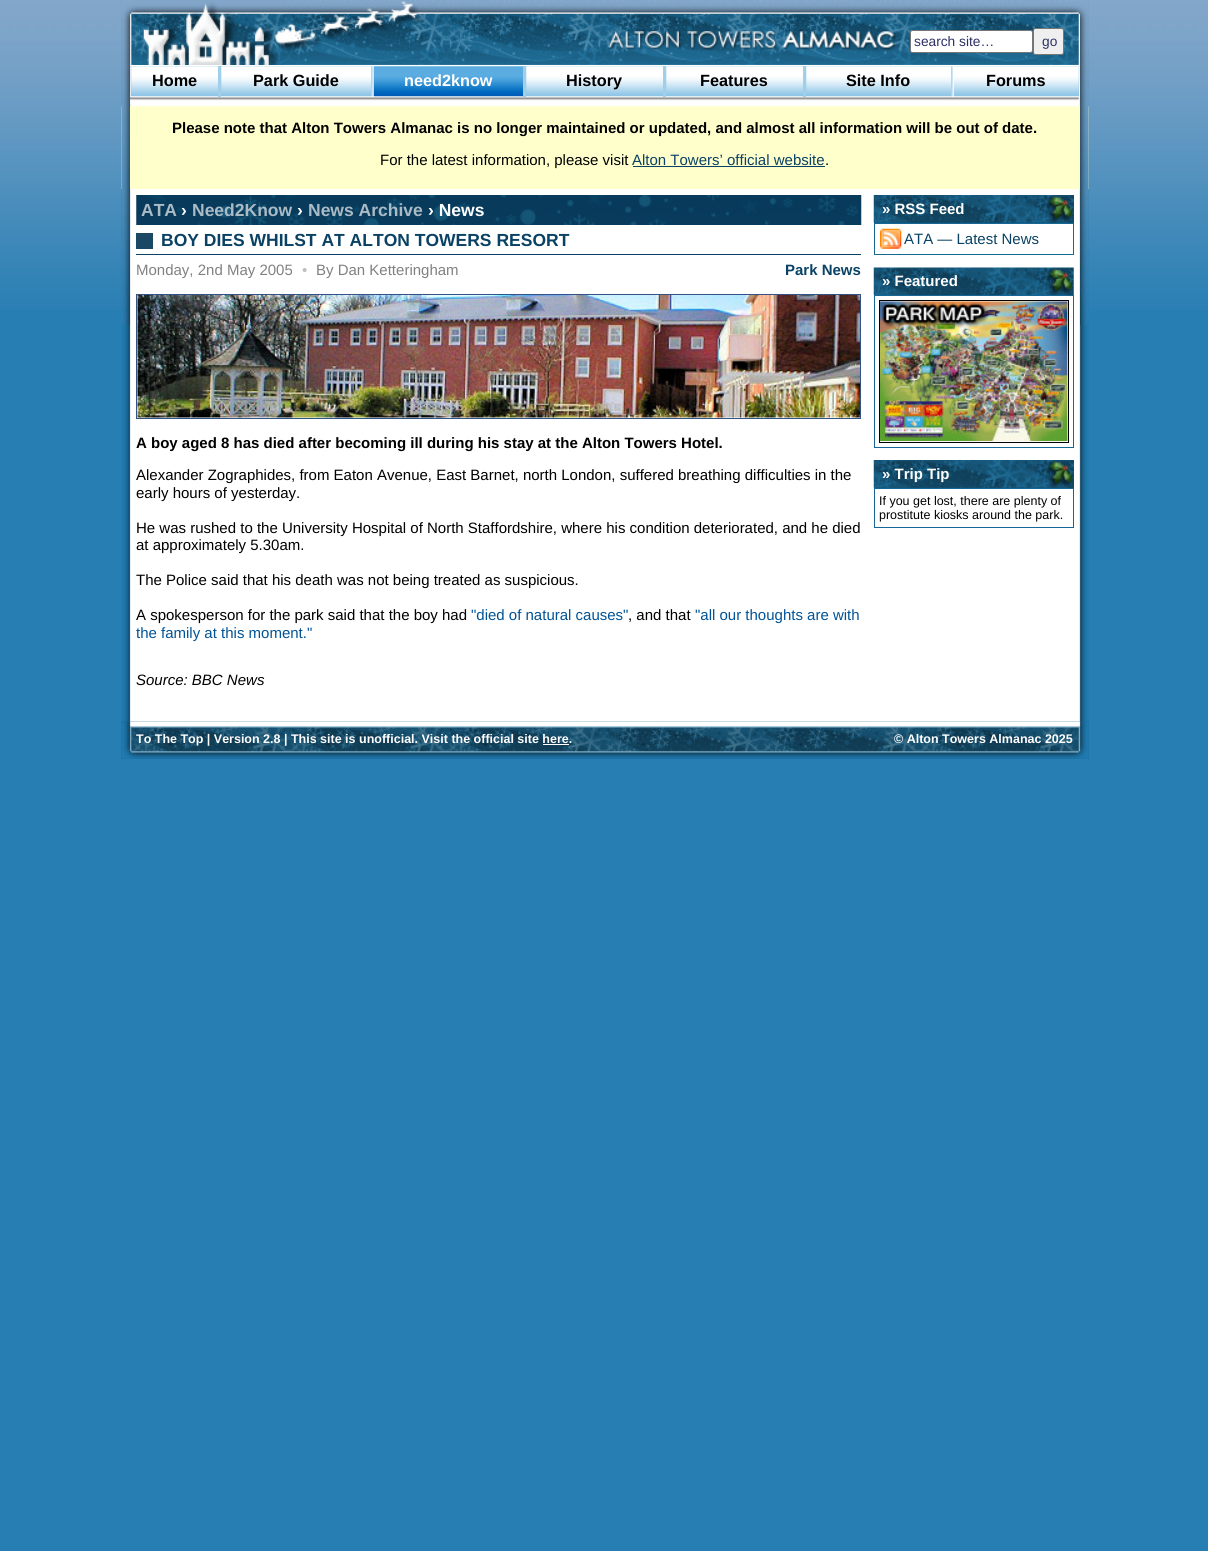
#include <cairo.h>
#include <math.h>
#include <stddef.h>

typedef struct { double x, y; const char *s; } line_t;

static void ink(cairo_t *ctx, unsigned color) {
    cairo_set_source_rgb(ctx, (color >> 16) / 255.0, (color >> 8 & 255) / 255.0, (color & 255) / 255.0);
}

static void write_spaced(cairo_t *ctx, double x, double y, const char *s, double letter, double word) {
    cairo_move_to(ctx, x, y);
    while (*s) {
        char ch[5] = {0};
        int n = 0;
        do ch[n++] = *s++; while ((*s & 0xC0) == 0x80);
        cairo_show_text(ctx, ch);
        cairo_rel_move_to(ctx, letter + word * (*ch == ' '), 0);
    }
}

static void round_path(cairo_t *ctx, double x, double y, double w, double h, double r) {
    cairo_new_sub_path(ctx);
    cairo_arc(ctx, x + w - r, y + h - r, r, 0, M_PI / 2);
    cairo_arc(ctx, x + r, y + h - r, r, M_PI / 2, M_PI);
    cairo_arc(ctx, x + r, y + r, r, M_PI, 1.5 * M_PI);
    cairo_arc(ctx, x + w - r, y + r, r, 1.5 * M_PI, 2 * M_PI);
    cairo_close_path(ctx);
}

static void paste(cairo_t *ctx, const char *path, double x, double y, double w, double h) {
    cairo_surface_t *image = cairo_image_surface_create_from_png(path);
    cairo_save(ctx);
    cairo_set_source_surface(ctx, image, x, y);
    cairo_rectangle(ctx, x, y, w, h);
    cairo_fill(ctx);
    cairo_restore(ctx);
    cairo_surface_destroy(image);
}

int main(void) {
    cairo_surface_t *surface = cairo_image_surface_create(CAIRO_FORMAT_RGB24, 1208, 1551);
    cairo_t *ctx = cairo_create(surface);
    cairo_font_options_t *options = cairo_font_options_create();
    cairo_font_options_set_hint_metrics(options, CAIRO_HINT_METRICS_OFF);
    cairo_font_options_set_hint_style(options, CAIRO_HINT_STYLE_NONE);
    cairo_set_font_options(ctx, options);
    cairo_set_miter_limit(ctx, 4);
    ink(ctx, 0x267EB2);
    cairo_paint(ctx);
    paste(ctx, "media/1.png", 0, 0, 1208, 310);
    paste(ctx, "media/2.png", 121, 0, 968, 721);
    ink(ctx, 0xFFFFCC);
    cairo_rectangle(ctx, 121, 106, 968, 83);
    cairo_fill(ctx);
    paste(ctx, "media/4.png", 121, 0, 968, 107);
    paste(ctx, "media/3.png", 121, 0, 9, 325);
    paste(ctx, "media/5.png", 133, 0, 151, 65);
    paste(ctx, "media/6.png", 605, 26, 297, 28);
    ink(ctx, 0xFFFFFF);
    round_path(ctx, 910.5, 30.5, 122, 22, 2);
    cairo_fill_preserve(ctx);
    ink(ctx, 0x767676);
    cairo_set_line_width(ctx, 1);
    cairo_stroke(ctx);
    cairo_select_font_face(ctx, "Liberation Sans", CAIRO_FONT_SLANT_NORMAL, CAIRO_FONT_WEIGHT_NORMAL);
    cairo_set_font_size(ctx, 13.75);
    ink(ctx, 0x2E3066);
    cairo_move_to(ctx, 914, 46);
    cairo_show_text(ctx, "search site…");
    ink(ctx, 0xEFEFEF);
    round_path(ctx, 1033.5, 28.5, 30, 26, 2);
    cairo_fill_preserve(ctx);
    ink(ctx, 0x767676);
    cairo_stroke(ctx);
    ink(ctx, 0x2E3066);
    cairo_move_to(ctx, 1042, 46);
    cairo_show_text(ctx, "go");
    ink(ctx, 0xFFFFFF);
    cairo_rectangle(ctx, 131, 65, 948, 1);
    cairo_fill(ctx);
    ink(ctx, 0x8EC5E7);
    cairo_rectangle(ctx, 131, 66, 87, 30);
    cairo_fill(ctx);
    paste(ctx, "media/7.png", 131, 66, 87, 31);
    cairo_select_font_face(ctx, "Liberation Sans", CAIRO_FONT_SLANT_NORMAL, CAIRO_FONT_WEIGHT_BOLD);
    cairo_set_font_size(ctx, 16.25);
    ink(ctx, 0x000000);
    cairo_move_to(ctx, 152, 86);
    cairo_show_text(ctx, "Home");
    ink(ctx, 0xA1CFEA);
    cairo_rectangle(ctx, 218, 66, 3, 31);
    cairo_fill(ctx);
    ink(ctx, 0x8EC5E7);
    cairo_rectangle(ctx, 221, 66, 150, 30);
    cairo_fill(ctx);
    paste(ctx, "media/8.png", 221, 66, 151, 31);
    ink(ctx, 0x000000);
    cairo_move_to(ctx, 253, 86);
    cairo_show_text(ctx, "Park Guide");
    paste(ctx, "media/9.png", 371, 66, 2, 31);
    paste(ctx, "media/10.png", 373, 66, 150, 31);
    ink(ctx, 0xFFFFFF);
    cairo_move_to(ctx, 404, 86);
    cairo_show_text(ctx, "need2know");
    ink(ctx, 0xA1CFEA);
    cairo_rectangle(ctx, 523, 66, 3, 31);
    cairo_fill(ctx);
    ink(ctx, 0x8EC5E7);
    cairo_rectangle(ctx, 526, 66, 137, 30);
    cairo_fill(ctx);
    paste(ctx, "media/11.png", 526, 66, 137, 31);
    ink(ctx, 0x000000);
    cairo_move_to(ctx, 566, 86);
    cairo_show_text(ctx, "History");
    ink(ctx, 0xA1CFEA);
    cairo_rectangle(ctx, 663, 66, 3, 31);
    cairo_fill(ctx);
    ink(ctx, 0x8EC5E7);
    cairo_rectangle(ctx, 666, 66, 137, 30);
    cairo_fill(ctx);
    paste(ctx, "media/12.png", 666, 66, 137, 31);
    ink(ctx, 0x000000);
    cairo_move_to(ctx, 700, 86);
    cairo_show_text(ctx, "Features");
    ink(ctx, 0xA1CFEA);
    cairo_rectangle(ctx, 803, 66, 3, 31);
    cairo_fill(ctx);
    ink(ctx, 0x8EC5E7);
    cairo_rectangle(ctx, 806, 66, 145, 30);
    cairo_fill(ctx);
    paste(ctx, "media/13.png", 806, 66, 146, 31);
    ink(ctx, 0x000000);
    cairo_move_to(ctx, 846, 86);
    cairo_show_text(ctx, "Site Info");
    paste(ctx, "media/9.png", 951, 66, 2, 31);
    ink(ctx, 0x8EC5E7);
    cairo_rectangle(ctx, 954, 66, 125, 30);
    cairo_fill(ctx);
    paste(ctx, "media/14.png", 953, 66, 126, 31);
    ink(ctx, 0x000000);
    cairo_move_to(ctx, 986, 86);
    cairo_show_text(ctx, "Forums");
    paste(ctx, "media/15.png", 130, 97, 949, 7);
    paste(ctx, "media/16.png", 1080, 0, 9, 325);
    cairo_set_font_size(ctx, 15);
    cairo_move_to(ctx, 172, 133);
    cairo_show_text(ctx, "Please note that Alton Towers Almanac is no longer maintained or updated, and almost all information will be out of date.");
    cairo_select_font_face(ctx, "Liberation Sans", CAIRO_FONT_SLANT_NORMAL, CAIRO_FONT_WEIGHT_NORMAL);
    cairo_move_to(ctx, 380, 165);
    cairo_show_text(ctx, "For the latest information, please visit");
    ink(ctx, 0x094264);
    cairo_move_to(ctx, 632, 165);
    cairo_show_text(ctx, "Alton Towers’ official website");
    cairo_rectangle(ctx, 633, 166, 192, 1);
    cairo_fill(ctx);
    ink(ctx, 0x000000);
    cairo_move_to(ctx, 825, 165);
    cairo_show_text(ctx, ".");
    paste(ctx, "media/17.png", 136, 195, 726, 30);
    cairo_select_font_face(ctx, "Liberation Sans", CAIRO_FONT_SLANT_NORMAL, CAIRO_FONT_WEIGHT_BOLD);
    cairo_set_font_size(ctx, 17.5);
    ink(ctx, 0xAABBC5);
    cairo_move_to(ctx, 141, 216);
    cairo_show_text(ctx, "ATA");
    ink(ctx, 0xFFFFFF);
    cairo_move_to(ctx, 181, 216);
    cairo_show_text(ctx, "›");
    ink(ctx, 0xAABBC5);
    cairo_move_to(ctx, 192, 216);
    cairo_show_text(ctx, "Need2Know");
    ink(ctx, 0xFFFFFF);
    cairo_move_to(ctx, 297, 216);
    cairo_show_text(ctx, "›");
    ink(ctx, 0xAABBC5);
    cairo_move_to(ctx, 308, 216);
    cairo_show_text(ctx, "News Archive");
    ink(ctx, 0xFFFFFF);
    cairo_move_to(ctx, 428, 216);
    cairo_show_text(ctx, "› News");
    ink(ctx, 0x1B4863);
    cairo_rectangle(ctx, 136, 233, 17, 16);
    cairo_fill(ctx);
    ink(ctx, 0x094264);
    cairo_rectangle(ctx, 136, 254, 725, 1);
    cairo_fill(ctx);
    cairo_move_to(ctx, 161, 246);
    cairo_show_text(ctx, "BOY DIES WHILST AT ALTON TOWERS RESORT");
    cairo_select_font_face(ctx, "Liberation Sans", CAIRO_FONT_SLANT_NORMAL, CAIRO_FONT_WEIGHT_NORMAL);
    cairo_set_font_size(ctx, 15);
    ink(ctx, 0x818181);
    cairo_move_to(ctx, 136, 275);
    cairo_show_text(ctx, "Monday, 2nd May 2005");
    ink(ctx, 0xBEBEBE);
    write_spaced(ctx, 302, 275, "•", 5, 0);
    ink(ctx, 0x818181);
    cairo_move_to(ctx, 316, 275);
    cairo_show_text(ctx, "By Dan Ketteringham");
    cairo_select_font_face(ctx, "Liberation Sans", CAIRO_FONT_SLANT_NORMAL, CAIRO_FONT_WEIGHT_BOLD);
    ink(ctx, 0x094264);
    cairo_move_to(ctx, 785, 275);
    cairo_show_text(ctx, "Park News");
    paste(ctx, "media/18.png", 137, 295, 723, 123);
    cairo_rectangle(ctx, 136.5, 294.5, 724, 124);
    ink(ctx, 0x335386);
    cairo_stroke(ctx);
    ink(ctx, 0x000000);
    cairo_move_to(ctx, 136, 448);
    cairo_show_text(ctx, "A boy aged 8 has died after becoming ill during his stay at the Alton Towers Hotel.");
    cairo_select_font_face(ctx, "Liberation Sans", CAIRO_FONT_SLANT_NORMAL, CAIRO_FONT_WEIGHT_NORMAL);
    {
        static const line_t items[] = {
            {136, 480, "Alexander Zographides, from Eaton Avenue, East Barnet, north London, suffered breathing difficulties in the"},
            {136, 498, "early hours of yesterday."},
            {136, 533, "He was rushed to the University Hospital of North Staffordshire, where his condition deteriorated, and he died"},
            {136, 550, "at approximately 5.30am."},
            {136, 585, "The Police said that his death was not being treated as suspicious."},
            {136, 620, "A spokesperson for the park said that the boy had"},
        };
        for (size_t i = 0; i < sizeof items / sizeof *items; i++) {
            cairo_move_to(ctx, items[i].x, items[i].y);
            cairo_show_text(ctx, items[i].s);
        }
    }
    ink(ctx, 0x005396);
    cairo_move_to(ctx, 471, 620);
    cairo_show_text(ctx, "\"died of natural causes\"");
    ink(ctx, 0x000000);
    cairo_move_to(ctx, 628, 620);
    cairo_show_text(ctx, ", and that");
    ink(ctx, 0x005396);
    cairo_move_to(ctx, 695, 620);
    cairo_show_text(ctx, "\"all our thoughts are with");
    cairo_move_to(ctx, 136, 638);
    cairo_show_text(ctx, "the family at this moment.\"");
    cairo_select_font_face(ctx, "Liberation Sans", CAIRO_FONT_SLANT_ITALIC, CAIRO_FONT_WEIGHT_NORMAL);
    ink(ctx, 0x000000);
    cairo_move_to(ctx, 136, 685);
    cairo_show_text(ctx, "Source: BBC News");
    ink(ctx, 0x155375);
    cairo_rectangle(ctx, 874, 195, 200, 28);
    cairo_fill(ctx);
    paste(ctx, "media/19.png", 873, 195, 201, 28);
    cairo_select_font_face(ctx, "Liberation Sans", CAIRO_FONT_SLANT_NORMAL, CAIRO_FONT_WEIGHT_BOLD);
    ink(ctx, 0xFFFFFF);
    cairo_move_to(ctx, 882, 214);
    cairo_show_text(ctx, "» RSS Feed");
    cairo_rectangle(ctx, 874.5, 223.5, 199, 31);
    ink(ctx, 0x156798);
    cairo_stroke(ctx);
    paste(ctx, "media/20.png", 880, 228, 22, 21);
    cairo_select_font_face(ctx, "Liberation Sans", CAIRO_FONT_SLANT_NORMAL, CAIRO_FONT_WEIGHT_NORMAL);
    ink(ctx, 0x094264);
    cairo_move_to(ctx, 904, 244);
    cairo_show_text(ctx, "ATA — Latest News");
    paste(ctx, "media/21.png", 873, 267, 201, 28);
    cairo_select_font_face(ctx, "Liberation Sans", CAIRO_FONT_SLANT_NORMAL, CAIRO_FONT_WEIGHT_BOLD);
    ink(ctx, 0xFFFFFF);
    cairo_move_to(ctx, 882, 286);
    cairo_show_text(ctx, "» Featured");
    cairo_rectangle(ctx, 874.5, 295.5, 199, 152);
    ink(ctx, 0x156798);
    cairo_stroke(ctx);
    cairo_rectangle(ctx, 879.5, 300.5, 189, 142);
    ink(ctx, 0x000000);
    cairo_stroke(ctx);
    paste(ctx, "media/22.png", 880, 301, 188, 141);
    paste(ctx, "media/23.png", 1067, 301, 1, 140);
    ink(ctx, 0x155375);
    cairo_rectangle(ctx, 874, 460, 200, 28);
    cairo_fill(ctx);
    paste(ctx, "media/19.png", 873, 460, 201, 28);
    ink(ctx, 0xFFFFFF);
    cairo_move_to(ctx, 882, 479);
    cairo_show_text(ctx, "» Trip Tip");
    cairo_rectangle(ctx, 874.5, 488.5, 199, 39);
    ink(ctx, 0x156798);
    cairo_stroke(ctx);
    cairo_select_font_face(ctx, "Liberation Sans", CAIRO_FONT_SLANT_NORMAL, CAIRO_FONT_WEIGHT_NORMAL);
    cairo_set_font_size(ctx, 12.5);
    ink(ctx, 0x000000);
    cairo_move_to(ctx, 879, 505);
    cairo_show_text(ctx, "If you get lost, there are plenty of");
    cairo_move_to(ctx, 879, 519);
    cairo_show_text(ctx, "prostitute kiosks around the park.");
    ink(ctx, 0x166898);
    cairo_rectangle(ctx, 121, 721, 968, 38);
    cairo_fill(ctx);
    paste(ctx, "media/24.png", 121, 721, 968, 38);
    cairo_select_font_face(ctx, "Liberation Sans", CAIRO_FONT_SLANT_NORMAL, CAIRO_FONT_WEIGHT_BOLD);
    ink(ctx, 0xFFFFFF);
    cairo_move_to(ctx, 136, 743);
    cairo_show_text(ctx, "To The Top | Version 2.8 | This site is unofficial. Visit the official site here.");
    cairo_rectangle(ctx, 543, 744, 26, 1);
    cairo_fill(ctx);
    cairo_move_to(ctx, 894, 743);
    cairo_show_text(ctx, "© Alton Towers Almanac 2025");
    cairo_surface_write_to_png(surface, "image.png");
    cairo_font_options_destroy(options);
    cairo_destroy(ctx);
    cairo_surface_destroy(surface);
    return 0;
}
